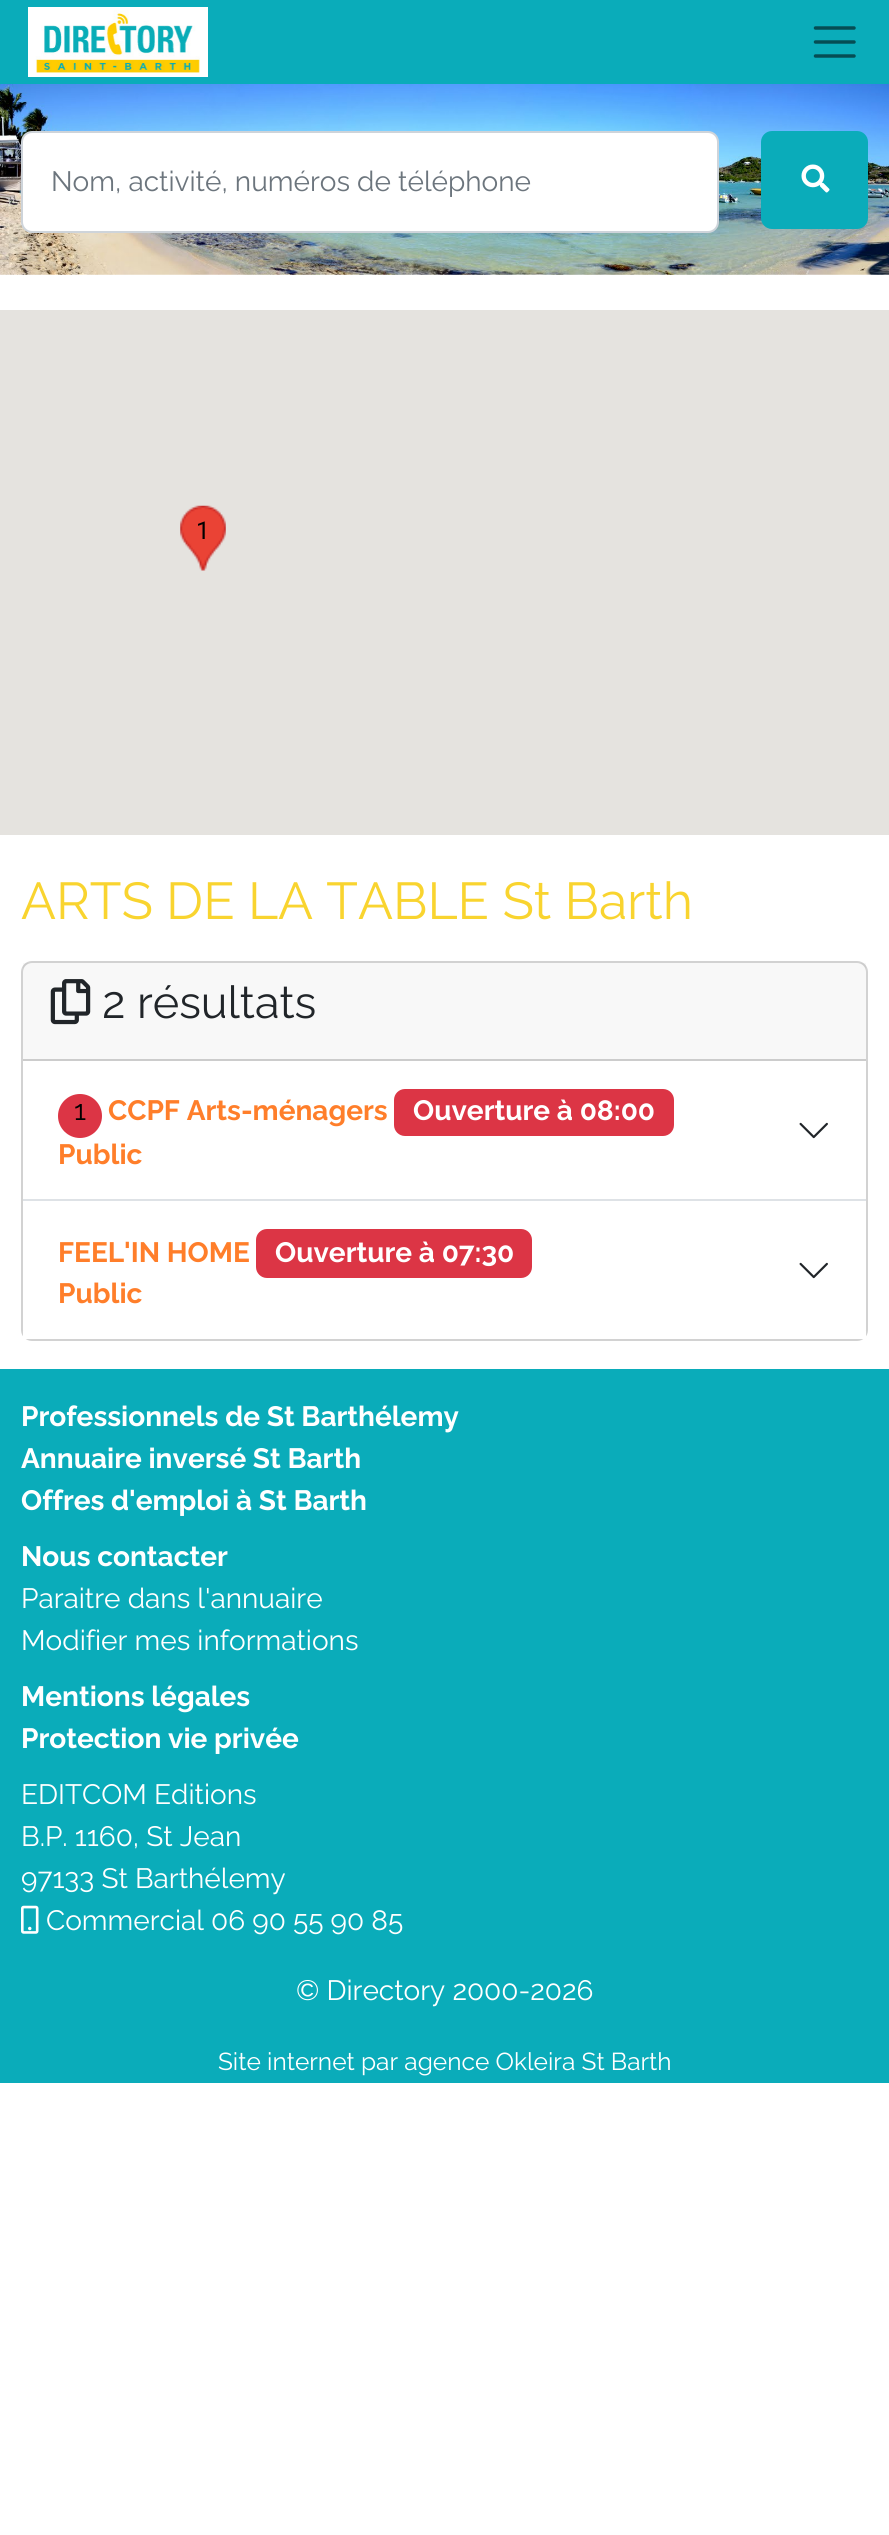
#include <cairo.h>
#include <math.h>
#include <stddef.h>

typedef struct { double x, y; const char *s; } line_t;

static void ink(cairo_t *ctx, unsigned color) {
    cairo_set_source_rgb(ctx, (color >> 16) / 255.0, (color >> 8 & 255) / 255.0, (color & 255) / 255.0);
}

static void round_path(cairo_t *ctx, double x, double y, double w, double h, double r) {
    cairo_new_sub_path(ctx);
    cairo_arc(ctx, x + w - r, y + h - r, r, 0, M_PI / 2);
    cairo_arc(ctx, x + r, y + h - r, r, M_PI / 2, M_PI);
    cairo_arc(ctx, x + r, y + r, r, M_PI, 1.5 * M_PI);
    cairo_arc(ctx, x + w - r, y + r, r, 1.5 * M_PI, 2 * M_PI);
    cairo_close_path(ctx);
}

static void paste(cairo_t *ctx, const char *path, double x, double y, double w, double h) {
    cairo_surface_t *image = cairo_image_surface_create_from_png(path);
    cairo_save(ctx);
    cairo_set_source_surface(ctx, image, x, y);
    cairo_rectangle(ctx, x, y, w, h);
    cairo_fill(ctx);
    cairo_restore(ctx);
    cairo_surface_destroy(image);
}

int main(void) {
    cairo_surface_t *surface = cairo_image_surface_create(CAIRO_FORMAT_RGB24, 889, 2535);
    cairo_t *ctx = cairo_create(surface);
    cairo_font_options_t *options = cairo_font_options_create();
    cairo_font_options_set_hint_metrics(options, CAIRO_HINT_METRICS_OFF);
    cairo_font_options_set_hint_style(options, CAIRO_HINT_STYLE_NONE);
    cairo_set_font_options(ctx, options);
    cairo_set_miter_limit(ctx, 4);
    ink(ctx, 0xFFFFFF);
    cairo_paint(ctx);
    ink(ctx, 0x0AACBA);
    cairo_rectangle(ctx, 0, 0, 889, 84);
    cairo_fill(ctx);
    paste(ctx, "media/1.png", 28, 7, 180, 70);
    cairo_new_path(ctx);
    cairo_move_to(ctx, 815.5, 28);
    cairo_line_to(ctx, 854, 28);
    cairo_move_to(ctx, 815.5, 42);
    cairo_line_to(ctx, 854, 42);
    cairo_move_to(ctx, 815.5, 56);
    cairo_line_to(ctx, 854, 56);
    ink(ctx, 0x054D54);
    cairo_set_line_width(ctx, 3.5);
    cairo_set_line_cap(ctx, CAIRO_LINE_CAP_ROUND);
    cairo_stroke(ctx);
    paste(ctx, "media/2.png", 0, 84, 889, 191);
    ink(ctx, 0xFFFFFF);
    round_path(ctx, 22, 132, 696, 100, 10);
    cairo_fill_preserve(ctx);
    ink(ctx, 0xCED4DA);
    cairo_set_line_width(ctx, 2);
    cairo_set_line_cap(ctx, CAIRO_LINE_CAP_BUTT);
    cairo_stroke(ctx);
    cairo_select_font_face(ctx, "Raleway", CAIRO_FONT_SLANT_NORMAL, CAIRO_FONT_WEIGHT_NORMAL);
    cairo_set_font_size(ctx, 28);
    ink(ctx, 0x6C757D);
    cairo_move_to(ctx, 51, 191);
    cairo_show_text(ctx, "Nom, activité, numéros de téléphone");
    ink(ctx, 0x0AACBA);
    round_path(ctx, 761, 131, 107, 98, 11);
    cairo_fill(ctx);
    paste(ctx, "media/3.png", 801, 164, 29, 29);
    ink(ctx, 0xE5E3DF);
    cairo_rectangle(ctx, 0, 310, 889, 525);
    cairo_fill(ctx);
    paste(ctx, "media/4.png", 180, 505, 46, 66);
    cairo_select_font_face(ctx, "Roboto", CAIRO_FONT_SLANT_NORMAL, CAIRO_FONT_WEIGHT_NORMAL);
    cairo_set_font_size(ctx, 24.5);
    ink(ctx, 0x000000);
    cairo_move_to(ctx, 196, 539);
    cairo_show_text(ctx, "1");
    cairo_select_font_face(ctx, "Raleway", CAIRO_FONT_SLANT_NORMAL, CAIRO_FONT_WEIGHT_NORMAL);
    cairo_set_font_size(ctx, 51.8);
    ink(ctx, 0xF9D42F);
    cairo_move_to(ctx, 21, 919);
    cairo_show_text(ctx, "ARTS DE LA TABLE St Barth");
    round_path(ctx, 22, 962, 845, 378, 10);
    ink(ctx, 0xD2D2D2);
    cairo_stroke(ctx);
    cairo_set_source_rgba(ctx, 0, 0, 0, 0.03);
    cairo_rectangle(ctx, 23, 963, 843, 96);
    cairo_fill(ctx);
    ink(ctx, 0xCCCCCC);
    cairo_rectangle(ctx, 23, 1059, 843, 2);
    cairo_fill(ctx);
    paste(ctx, "media/5.png", 50, 979, 41, 46);
    cairo_set_font_size(ctx, 45);
    ink(ctx, 0x212529);
    cairo_move_to(ctx, 102, 1018);
    cairo_show_text(ctx, "2 résultats");
    ink(ctx, 0xDEE2E6);
    cairo_rectangle(ctx, 23, 1199, 843, 2);
    cairo_fill(ctx);
    ink(ctx, 0xDC3545);
    cairo_arc(ctx, 80, 1116, 22, 0, 2 * M_PI);
    cairo_fill(ctx);
    cairo_set_font_size(ctx, 28);
    ink(ctx, 0x000000);
    cairo_move_to(ctx, 74, 1120);
    cairo_show_text(ctx, "1");
    cairo_select_font_face(ctx, "Raleway", CAIRO_FONT_SLANT_NORMAL, CAIRO_FONT_WEIGHT_BOLD);
    ink(ctx, 0xFF7E2A);
    cairo_move_to(ctx, 108, 1120);
    cairo_show_text(ctx, "CCPF Arts-ménagers");
    ink(ctx, 0xDC3545);
    round_path(ctx, 394, 1089, 280, 47, 11);
    cairo_fill(ctx);
    ink(ctx, 0xFFFFFF);
    cairo_move_to(ctx, 413, 1120);
    cairo_show_text(ctx, "Ouverture à 08:00");
    ink(ctx, 0xFF7E2A);
    cairo_move_to(ctx, 58, 1164);
    cairo_show_text(ctx, "Public");
    paste(ctx, "media/6.png", 799, 1122, 29, 17);
    ink(ctx, 0xFFFFFF);
    cairo_rectangle(ctx, 23, 1331, 843, 8);
    cairo_fill(ctx);
    ink(ctx, 0xFF7E2A);
    cairo_move_to(ctx, 58, 1262);
    cairo_show_text(ctx, "FEEL'IN HOME");
    ink(ctx, 0xDC3545);
    round_path(ctx, 256, 1229, 276, 49, 11);
    cairo_fill(ctx);
    ink(ctx, 0xFFFFFF);
    cairo_move_to(ctx, 275, 1262);
    cairo_show_text(ctx, "Ouverture à 07:30");
    ink(ctx, 0xFF7E2A);
    cairo_move_to(ctx, 58, 1303);
    cairo_show_text(ctx, "Public");
    paste(ctx, "media/6.png", 799, 1262, 29, 17);
    ink(ctx, 0x0AACBA);
    cairo_rectangle(ctx, 0, 1369, 889, 714);
    cairo_fill(ctx);
    ink(ctx, 0xFFFFFF);
    {
        static const line_t items[] = {
            {21, 1426, "Professionnels de St Barthélemy"},
            {21, 1468, "Annuaire inversé St Barth"},
            {21, 1510, "Offres d'emploi à St Barth"},
            {21, 1566, "Nous contacter"},
        };
        for (size_t i = 0; i < sizeof items / sizeof *items; i++) {
            cairo_move_to(ctx, items[i].x, items[i].y);
            cairo_show_text(ctx, items[i].s);
        }
    }
    cairo_select_font_face(ctx, "Raleway", CAIRO_FONT_SLANT_NORMAL, CAIRO_FONT_WEIGHT_NORMAL);
    cairo_move_to(ctx, 21, 1608);
    cairo_show_text(ctx, "Paraitre dans l'annuaire");
    cairo_move_to(ctx, 21, 1650);
    cairo_show_text(ctx, "Modifier mes informations");
    cairo_select_font_face(ctx, "Raleway", CAIRO_FONT_SLANT_NORMAL, CAIRO_FONT_WEIGHT_BOLD);
    cairo_move_to(ctx, 21, 1706);
    cairo_show_text(ctx, "Mentions légales");
    cairo_move_to(ctx, 21, 1748);
    cairo_show_text(ctx, "Protection vie privée");
    cairo_select_font_face(ctx, "Raleway", CAIRO_FONT_SLANT_NORMAL, CAIRO_FONT_WEIGHT_NORMAL);
    {
        static const line_t items[] = {
            {21, 1804, "EDITCOM Editions"},
            {21, 1846, "B.P. 1160, St Jean"},
            {21, 1888, "97133 St Barthélemy"},
        };
        for (size_t i = 0; i < sizeof items / sizeof *items; i++) {
            cairo_move_to(ctx, items[i].x, items[i].y);
            cairo_show_text(ctx, items[i].s);
        }
    }
    paste(ctx, "media/7.png", 21, 1905, 18, 29);
    cairo_move_to(ctx, 46, 1930);
    cairo_show_text(ctx, "Commercial 06 90 55 90 85");
    cairo_move_to(ctx, 296, 2000);
    cairo_show_text(ctx, "© Directory 2000-2026");
    cairo_set_font_size(ctx, 24.5);
    cairo_move_to(ctx, 218, 2070);
    cairo_show_text(ctx, "Site internet par agence Okleira St Barth");
    cairo_surface_write_to_png(surface, "image.png");
    cairo_font_options_destroy(options);
    cairo_destroy(ctx);
    cairo_surface_destroy(surface);
    return 0;
}
